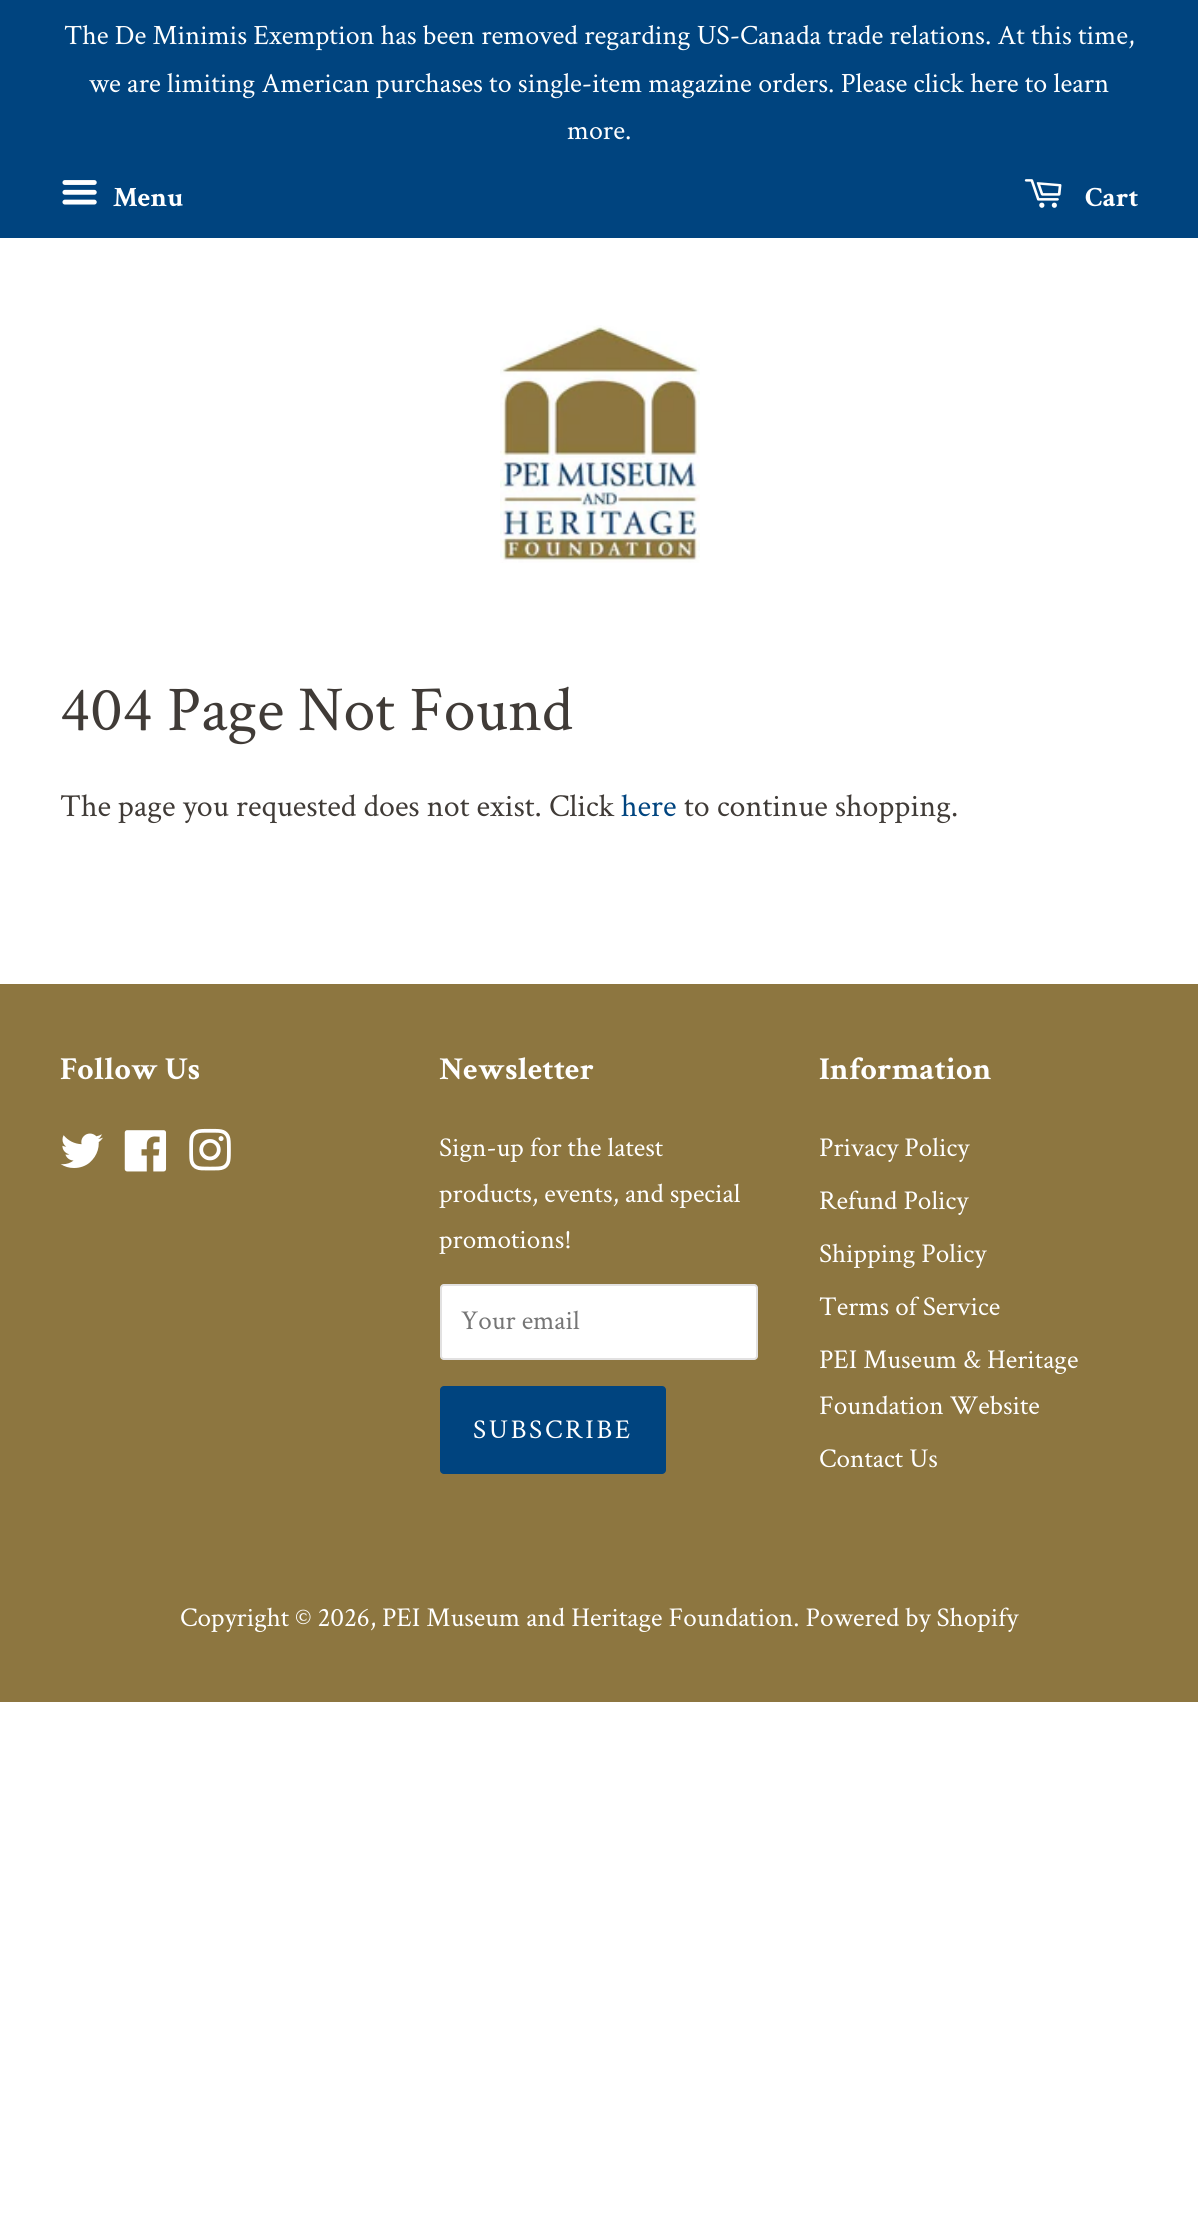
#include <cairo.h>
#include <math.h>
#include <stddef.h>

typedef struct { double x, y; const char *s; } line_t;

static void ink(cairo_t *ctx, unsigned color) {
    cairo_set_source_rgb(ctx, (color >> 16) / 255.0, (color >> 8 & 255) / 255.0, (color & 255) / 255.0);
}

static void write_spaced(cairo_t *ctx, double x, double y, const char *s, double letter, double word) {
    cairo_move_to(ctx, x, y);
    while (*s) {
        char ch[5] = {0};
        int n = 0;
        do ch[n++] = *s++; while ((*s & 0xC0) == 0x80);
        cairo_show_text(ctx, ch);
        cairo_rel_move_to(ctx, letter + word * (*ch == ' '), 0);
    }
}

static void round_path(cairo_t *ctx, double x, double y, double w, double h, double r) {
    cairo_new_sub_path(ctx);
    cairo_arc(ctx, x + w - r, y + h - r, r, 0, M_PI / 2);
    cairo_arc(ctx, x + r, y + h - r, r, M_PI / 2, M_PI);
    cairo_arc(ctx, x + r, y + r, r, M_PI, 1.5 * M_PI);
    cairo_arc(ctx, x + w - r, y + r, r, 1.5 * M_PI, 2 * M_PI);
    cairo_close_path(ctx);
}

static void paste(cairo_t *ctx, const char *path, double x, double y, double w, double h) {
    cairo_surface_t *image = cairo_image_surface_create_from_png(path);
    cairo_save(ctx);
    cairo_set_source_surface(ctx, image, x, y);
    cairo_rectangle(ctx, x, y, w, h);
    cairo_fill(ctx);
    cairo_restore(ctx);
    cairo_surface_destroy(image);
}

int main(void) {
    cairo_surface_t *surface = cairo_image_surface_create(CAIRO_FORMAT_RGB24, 1198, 2227);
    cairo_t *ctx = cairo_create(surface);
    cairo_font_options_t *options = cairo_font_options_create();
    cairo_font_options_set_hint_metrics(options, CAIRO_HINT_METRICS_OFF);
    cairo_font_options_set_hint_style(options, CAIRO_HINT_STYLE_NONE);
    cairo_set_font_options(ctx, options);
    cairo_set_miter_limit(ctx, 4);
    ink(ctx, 0xFFFFFF);
    cairo_paint(ctx);
    ink(ctx, 0x00447F);
    cairo_rectangle(ctx, 0, 0, 1198, 238);
    cairo_fill(ctx);
    cairo_select_font_face(ctx, "Crimson Text", CAIRO_FONT_SLANT_NORMAL, CAIRO_FONT_WEIGHT_NORMAL);
    cairo_set_font_size(ctx, 28);
    ink(ctx, 0xFFFFFF);
    {
        static const line_t items[] = {
            {64, 44, "The De Minimis Exemption has been removed regarding US-Canada trade relations. At this time,"},
            {89, 92, "we are limiting American purchases to single-item magazine orders. Please click here to learn"},
            {567, 139, "more."},
        };
        for (size_t i = 0; i < sizeof items / sizeof *items; i++) {
            cairo_move_to(ctx, items[i].x, items[i].y);
            cairo_show_text(ctx, items[i].s);
        }
    }
    paste(ctx, "media/1.png", 62, 180, 35, 25);
    cairo_select_font_face(ctx, "Crimson Text", CAIRO_FONT_SLANT_NORMAL, CAIRO_FONT_WEIGHT_BOLD);
    cairo_move_to(ctx, 113, 206);
    cairo_show_text(ctx, "Menu");
    paste(ctx, "media/2.png", 1024, 179, 38, 29);
    cairo_move_to(ctx, 1085, 206);
    cairo_show_text(ctx, "Cart");
    paste(ctx, "media/3.png", 500, 325, 200, 238);
    cairo_select_font_face(ctx, "Crimson Text", CAIRO_FONT_SLANT_NORMAL, CAIRO_FONT_WEIGHT_NORMAL);
    cairo_set_font_size(ctx, 64);
    ink(ctx, 0x403B37);
    cairo_move_to(ctx, 60, 730);
    cairo_show_text(ctx, "404 Page Not Found");
    cairo_set_font_size(ctx, 32);
    cairo_move_to(ctx, 60, 816);
    cairo_show_text(ctx, "The page you requested does not exist. Click");
    ink(ctx, 0x00447F);
    cairo_move_to(ctx, 621, 816);
    cairo_show_text(ctx, "here");
    ink(ctx, 0x403B37);
    cairo_move_to(ctx, 684, 816);
    cairo_show_text(ctx, "to continue shopping.");
    ink(ctx, 0x8D7640);
    cairo_rectangle(ctx, 0, 984, 1198, 718);
    cairo_fill(ctx);
    cairo_select_font_face(ctx, "Crimson Text", CAIRO_FONT_SLANT_NORMAL, CAIRO_FONT_WEIGHT_BOLD);
    ink(ctx, 0xFFFFFF);
    cairo_move_to(ctx, 60, 1079);
    cairo_show_text(ctx, "Follow Us");
    paste(ctx, "media/4.png", 60, 1133, 43, 35);
    paste(ctx, "media/5.png", 124, 1130, 43, 42);
    paste(ctx, "media/6.png", 189, 1128, 42, 43);
    cairo_move_to(ctx, 439, 1079);
    cairo_show_text(ctx, "Newsletter");
    cairo_select_font_face(ctx, "Crimson Text", CAIRO_FONT_SLANT_NORMAL, CAIRO_FONT_WEIGHT_NORMAL);
    cairo_set_font_size(ctx, 27.2);
    {
        static const line_t items[] = {
            {439, 1156, "Sign-up for the latest"},
            {439, 1202, "products, events, and special"},
            {439, 1248, "promotions!"},
        };
        for (size_t i = 0; i < sizeof items / sizeof *items; i++) {
            cairo_move_to(ctx, items[i].x, items[i].y);
            cairo_show_text(ctx, items[i].s);
        }
    }
    round_path(ctx, 440, 1284, 318, 76, 4);
    cairo_fill(ctx);
    round_path(ctx, 441, 1285, 316, 74, 3);
    cairo_set_source_rgba(ctx, 0.251, 0.231, 0.216, 0.15);
    cairo_stroke(ctx);
    ink(ctx, 0x757575);
    cairo_move_to(ctx, 461, 1329);
    cairo_show_text(ctx, "Your email");
    ink(ctx, 0x00447F);
    round_path(ctx, 440, 1386, 226, 88, 4);
    cairo_fill(ctx);
    ink(ctx, 0xFFFFFF);
    write_spaced(ctx, 473, 1438, "SUBSCRIBE", 2.75, 0);
    cairo_select_font_face(ctx, "Crimson Text", CAIRO_FONT_SLANT_NORMAL, CAIRO_FONT_WEIGHT_BOLD);
    cairo_set_font_size(ctx, 32);
    cairo_move_to(ctx, 819, 1079);
    cairo_show_text(ctx, "Information");
    cairo_select_font_face(ctx, "Crimson Text", CAIRO_FONT_SLANT_NORMAL, CAIRO_FONT_WEIGHT_NORMAL);
    cairo_set_font_size(ctx, 27.2);
    {
        static const line_t items[] = {
            {819, 1156, "Privacy Policy"},
            {819, 1209, "Refund Policy"},
            {819, 1262, "Shipping Policy"},
            {819, 1315, "Terms of Service"},
            {819, 1368, "PEI Museum & Heritage"},
            {819, 1414, "Foundation Website"},
            {819, 1467, "Contact Us"},
            {180, 1626, "Copyright © 2026, PEI Museum and Heritage Foundation. Powered by Shopify"},
        };
        for (size_t i = 0; i < sizeof items / sizeof *items; i++) {
            cairo_move_to(ctx, items[i].x, items[i].y);
            cairo_show_text(ctx, items[i].s);
        }
    }
    cairo_surface_write_to_png(surface, "image.png");
    cairo_font_options_destroy(options);
    cairo_destroy(ctx);
    cairo_surface_destroy(surface);
    return 0;
}
